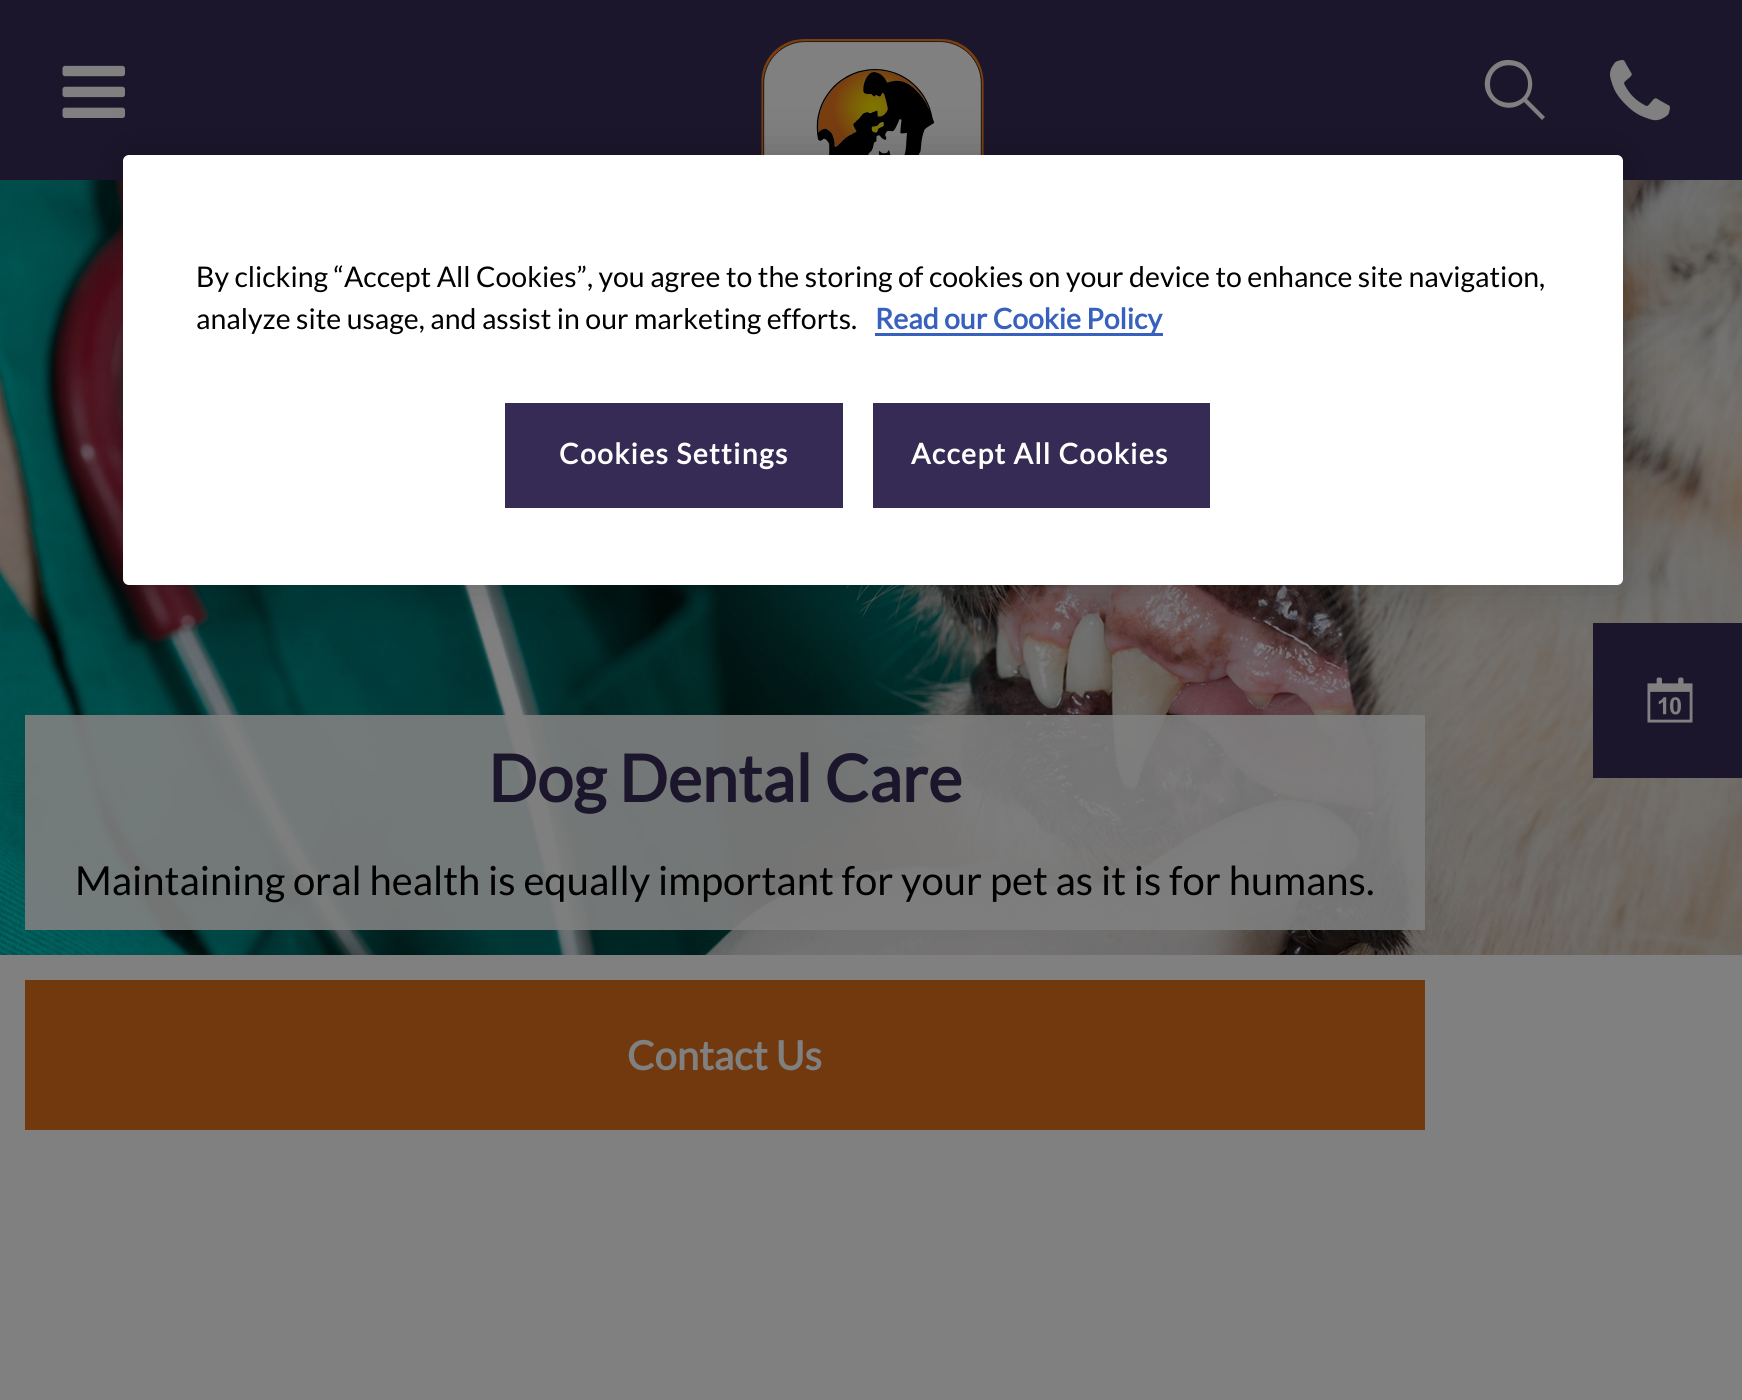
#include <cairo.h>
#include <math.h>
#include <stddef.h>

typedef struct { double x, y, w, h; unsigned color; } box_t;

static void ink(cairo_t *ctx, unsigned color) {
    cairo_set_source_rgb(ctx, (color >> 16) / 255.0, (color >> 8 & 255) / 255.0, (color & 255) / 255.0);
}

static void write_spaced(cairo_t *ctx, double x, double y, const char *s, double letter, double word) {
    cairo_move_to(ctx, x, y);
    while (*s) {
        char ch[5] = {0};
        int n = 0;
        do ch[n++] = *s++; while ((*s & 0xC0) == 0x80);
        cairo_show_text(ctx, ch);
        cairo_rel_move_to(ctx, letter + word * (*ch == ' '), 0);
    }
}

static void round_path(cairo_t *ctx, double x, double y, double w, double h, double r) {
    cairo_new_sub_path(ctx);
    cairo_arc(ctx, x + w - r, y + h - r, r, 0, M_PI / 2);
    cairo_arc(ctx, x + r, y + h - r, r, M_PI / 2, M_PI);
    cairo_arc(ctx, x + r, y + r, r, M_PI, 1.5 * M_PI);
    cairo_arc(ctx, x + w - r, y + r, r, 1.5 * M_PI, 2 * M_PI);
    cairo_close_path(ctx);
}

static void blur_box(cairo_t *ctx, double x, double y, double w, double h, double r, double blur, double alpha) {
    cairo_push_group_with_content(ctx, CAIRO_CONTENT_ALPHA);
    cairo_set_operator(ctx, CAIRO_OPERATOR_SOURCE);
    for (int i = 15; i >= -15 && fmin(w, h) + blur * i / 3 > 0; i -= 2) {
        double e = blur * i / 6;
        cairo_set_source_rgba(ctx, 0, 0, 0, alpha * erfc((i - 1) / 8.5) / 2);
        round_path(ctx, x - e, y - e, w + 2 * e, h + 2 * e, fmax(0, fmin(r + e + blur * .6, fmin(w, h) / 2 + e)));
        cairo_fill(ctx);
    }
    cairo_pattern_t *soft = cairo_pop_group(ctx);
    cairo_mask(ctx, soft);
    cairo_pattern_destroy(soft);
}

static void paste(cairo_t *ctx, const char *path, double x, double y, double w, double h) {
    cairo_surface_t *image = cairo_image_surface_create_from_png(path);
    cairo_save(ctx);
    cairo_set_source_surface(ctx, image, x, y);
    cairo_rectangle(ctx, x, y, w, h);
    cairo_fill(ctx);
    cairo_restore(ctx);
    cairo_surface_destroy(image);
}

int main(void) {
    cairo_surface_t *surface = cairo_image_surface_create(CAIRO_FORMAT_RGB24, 1742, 1400);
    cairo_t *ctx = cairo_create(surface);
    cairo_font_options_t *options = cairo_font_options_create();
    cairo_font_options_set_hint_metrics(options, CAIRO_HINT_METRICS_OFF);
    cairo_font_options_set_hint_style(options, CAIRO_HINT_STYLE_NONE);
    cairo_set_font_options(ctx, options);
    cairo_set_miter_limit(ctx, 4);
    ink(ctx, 0x808080);
    cairo_paint(ctx);
    ink(ctx, 0x1B162B);
    cairo_rectangle(ctx, 0, 0, 1742, 180);
    cairo_fill(ctx);
    paste(ctx, "media/1.png", 62, 65, 63, 53);
    paste(ctx, "media/2.png", 761, 39, 223, 116);
    ink(ctx, 0x808080);
    cairo_new_path(ctx);
    cairo_move_to(ctx, 1545, 117);
    cairo_line_to(ctx, 1527, 99);
    cairo_curve_to(ctx, 1536, 88, 1533, 71, 1521, 63);
    cairo_curve_to(ctx, 1515, 60, 1507, 59, 1501, 61);
    cairo_curve_to(ctx, 1495, 63, 1491, 67, 1488, 72);
    cairo_curve_to(ctx, 1475, 95, 1504, 119, 1524, 102);
    cairo_line_to(ctx, 1542, 120);
    cairo_close_path(ctx);
    cairo_move_to(ctx, 1490, 84);
    cairo_curve_to(ctx, 1490, 59, 1528, 59, 1528, 84);
    cairo_curve_to(ctx, 1528, 109, 1490, 109, 1490, 84);
    cairo_close_path(ctx);
    cairo_fill(ctx);
    paste(ctx, "media/3.png", 1610, 60, 60, 61);
    paste(ctx, "media/5.png", 0, 180, 1742, 775);
    {
        static const box_t items[] = {
            {1598, 628, 144, 145, 0x1B162B},
            {1593, 623, 149, 5, 0x1B162B},
            {1593, 773, 149, 5, 0x1B162B},
            {1593, 623, 5, 155, 0x1B162B},
        };
        for (size_t i = 0; i < sizeof items / sizeof *items; i++) {
            ink(ctx, items[i].color);
            cairo_rectangle(ctx, items[i].x, items[i].y, items[i].w, items[i].h);
            cairo_fill(ctx);
        }
    }
    ink(ctx, 0x000000);
    blur_box(ctx, 123, 155, 1500, 430, 6, 22.5, 0.2);
    ink(ctx, 0xFFFFFF);
    round_path(ctx, 123, 155, 1500, 430, 6);
    cairo_fill(ctx);
    cairo_select_font_face(ctx, "Lato", CAIRO_FONT_SLANT_NORMAL, CAIRO_FONT_WEIGHT_NORMAL);
    cairo_set_font_size(ctx, 28.45);
    ink(ctx, 0x000000);
    cairo_move_to(ctx, 196, 287);
    cairo_show_text(ctx, "By clicking “Accept All Cookies”, you agree to the storing of cookies on your device to enhance site navigation,");
    cairo_move_to(ctx, 196, 329);
    cairo_show_text(ctx, "analyze site usage, and assist in our marketing efforts.");
    ink(ctx, 0x3860BE);
    cairo_rectangle(ctx, 875, 333, 288, 3);
    cairo_fill(ctx);
    cairo_select_font_face(ctx, "Lato", CAIRO_FONT_SLANT_NORMAL, CAIRO_FONT_WEIGHT_BOLD);
    cairo_move_to(ctx, 875, 329);
    cairo_show_text(ctx, "Read our Cookie Policy");
    ink(ctx, 0x362B55);
    cairo_rectangle(ctx, 505, 403, 338, 105);
    cairo_fill(ctx);
    ink(ctx, 0xFFFFFF);
    write_spaced(ctx, 559, 464, "Cookies Settings", 1.4, 0);
    ink(ctx, 0x362B55);
    cairo_rectangle(ctx, 873, 403, 337, 105);
    cairo_fill(ctx);
    ink(ctx, 0xFFFFFF);
    write_spaced(ctx, 911, 464, "Accept All Cookies", 1.4, 0);
    paste(ctx, "media/4.png", 1647, 677, 46, 46);
    cairo_set_source_rgba(ctx, 0.502, 0.502, 0.502, 0.9);
    cairo_rectangle(ctx, 25, 715, 1400, 215);
    cairo_fill(ctx);
    cairo_set_font_size(ctx, 65);
    ink(ctx, 0x1B162B);
    cairo_move_to(ctx, 488, 802);
    cairo_show_text(ctx, "Dog Dental Care");
    cairo_select_font_face(ctx, "Lato", CAIRO_FONT_SLANT_NORMAL, CAIRO_FONT_WEIGHT_NORMAL);
    cairo_set_font_size(ctx, 40);
    ink(ctx, 0x000000);
    cairo_move_to(ctx, 75, 895);
    cairo_show_text(ctx, "Maintaining oral health is equally important for your pet as it is for humans.");
    ink(ctx, 0x72390E);
    cairo_rectangle(ctx, 25, 980, 1400, 150);
    cairo_fill(ctx);
    cairo_select_font_face(ctx, "Lato", CAIRO_FONT_SLANT_NORMAL, CAIRO_FONT_WEIGHT_BOLD);
    ink(ctx, 0x808080);
    cairo_move_to(ctx, 627, 1070);
    cairo_show_text(ctx, "Contact Us");
    cairo_surface_write_to_png(surface, "image.png");
    cairo_font_options_destroy(options);
    cairo_destroy(ctx);
    cairo_surface_destroy(surface);
    return 0;
}
